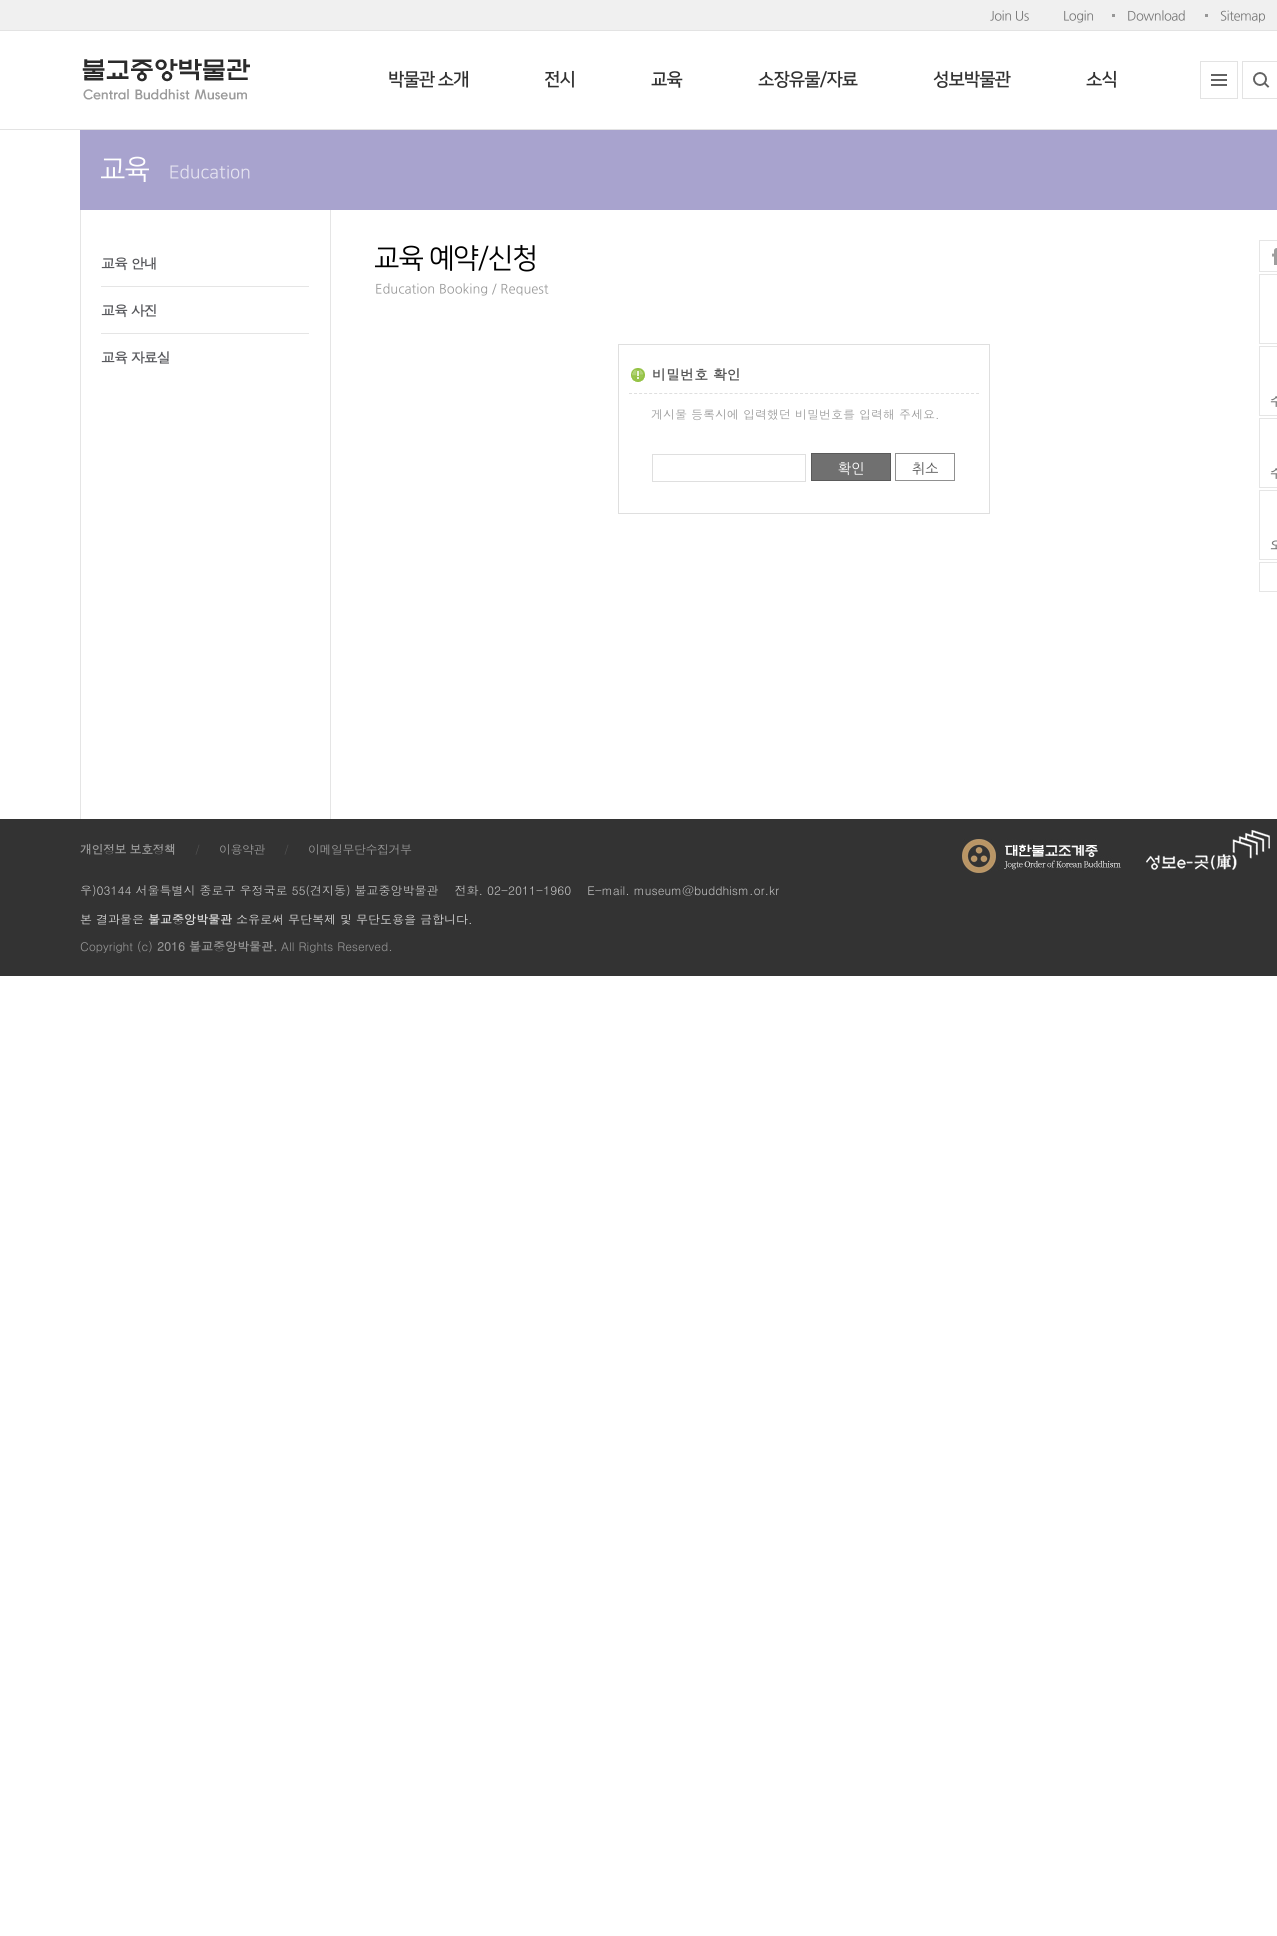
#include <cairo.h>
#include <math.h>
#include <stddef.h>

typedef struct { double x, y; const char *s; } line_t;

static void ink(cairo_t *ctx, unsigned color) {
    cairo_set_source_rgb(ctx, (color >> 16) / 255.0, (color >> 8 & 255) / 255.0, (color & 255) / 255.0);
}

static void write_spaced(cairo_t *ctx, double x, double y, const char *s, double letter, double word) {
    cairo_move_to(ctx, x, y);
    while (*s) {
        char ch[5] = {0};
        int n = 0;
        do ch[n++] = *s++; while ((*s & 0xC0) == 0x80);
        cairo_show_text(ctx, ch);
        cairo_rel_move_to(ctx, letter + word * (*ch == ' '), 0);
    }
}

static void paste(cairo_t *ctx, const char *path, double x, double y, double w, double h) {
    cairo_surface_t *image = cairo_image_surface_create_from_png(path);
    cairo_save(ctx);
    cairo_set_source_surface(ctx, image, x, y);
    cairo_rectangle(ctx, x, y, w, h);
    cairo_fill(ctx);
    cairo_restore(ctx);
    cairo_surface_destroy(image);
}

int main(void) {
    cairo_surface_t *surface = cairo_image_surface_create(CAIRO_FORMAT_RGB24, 1277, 1936);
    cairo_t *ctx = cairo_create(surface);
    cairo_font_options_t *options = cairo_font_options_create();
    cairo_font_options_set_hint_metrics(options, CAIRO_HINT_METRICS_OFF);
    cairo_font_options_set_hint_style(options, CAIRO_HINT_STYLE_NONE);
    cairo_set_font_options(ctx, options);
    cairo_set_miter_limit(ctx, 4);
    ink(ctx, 0xFFFFFF);
    cairo_paint(ctx);
    ink(ctx, 0xF0F0F0);
    cairo_rectangle(ctx, 0, 0, 1277, 30);
    cairo_fill(ctx);
    cairo_select_font_face(ctx, "NanumGothic", CAIRO_FONT_SLANT_NORMAL, CAIRO_FONT_WEIGHT_NORMAL);
    cairo_set_font_size(ctx, 13);
    ink(ctx, 0x777777);
    write_spaced(ctx, 990, 20, "Join Us", -0.5, 0);
    write_spaced(ctx, 1063, 20, "Login", -0.5, 0);
    ink(ctx, 0x979797);
    cairo_rectangle(ctx, 1112, 14, 3, 3);
    cairo_fill(ctx);
    ink(ctx, 0x777777);
    write_spaced(ctx, 1127, 20, "Download", -0.5, 0);
    ink(ctx, 0x979797);
    cairo_rectangle(ctx, 1205, 14, 3, 3);
    cairo_fill(ctx);
    ink(ctx, 0x777777);
    write_spaced(ctx, 1220, 20, "Sitemap", -0.5, 0);
    ink(ctx, 0xE3E3E3);
    cairo_rectangle(ctx, 0, 30, 1277, 1);
    cairo_fill(ctx);
    cairo_rectangle(ctx, 0, 129, 1277, 1);
    cairo_fill(ctx);
    paste(ctx, "media/1.png", 82, 59, 168, 41);
    cairo_select_font_face(ctx, "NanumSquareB", CAIRO_FONT_SLANT_NORMAL, CAIRO_FONT_WEIGHT_BOLD);
    cairo_set_font_size(ctx, 18);
    ink(ctx, 0x313131);
    {
        static const line_t items[] = {
            {388, 85, "박물관 소개"},
            {544, 85, "전시"},
            {651, 85, "교육"},
            {758, 85, "소장유물/자료"},
            {933, 85, "성보박물관"},
            {1086, 85, "소식"},
        };
        for (size_t i = 0; i < sizeof items / sizeof *items; i++) {
            write_spaced(ctx, items[i].x, items[i].y, items[i].s, -1, 0);
        }
    }
    paste(ctx, "media/2.png", 1200, 61, 38, 38);
    paste(ctx, "media/3.png", 1242, 61, 35, 38);
    ink(ctx, 0xA8A3CE);
    cairo_rectangle(ctx, 80, 130, 1197, 80);
    cairo_fill(ctx);
    cairo_select_font_face(ctx, "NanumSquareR", CAIRO_FONT_SLANT_NORMAL, CAIRO_FONT_WEIGHT_NORMAL);
    cairo_set_font_size(ctx, 28);
    ink(ctx, 0xFFFFFF);
    write_spaced(ctx, 100, 178, "교육", -1, 0);
    cairo_set_font_size(ctx, 18);
    ink(ctx, 0xE5E3F0);
    cairo_move_to(ctx, 169, 178);
    cairo_show_text(ctx, "Education");
    ink(ctx, 0xE5E5E5);
    cairo_rectangle(ctx, 330, 210, 1, 609);
    cairo_fill(ctx);
    cairo_rectangle(ctx, 80, 210, 1, 609);
    cairo_fill(ctx);
    cairo_select_font_face(ctx, "Dotum", CAIRO_FONT_SLANT_NORMAL, CAIRO_FONT_WEIGHT_BOLD);
    cairo_set_font_size(ctx, 14);
    ink(ctx, 0x57585C);
    write_spaced(ctx, 101, 269, "교육 안내", -1, 0);
    ink(ctx, 0xE5E5E5);
    cairo_rectangle(ctx, 101, 286, 208, 1);
    cairo_fill(ctx);
    ink(ctx, 0x57585C);
    write_spaced(ctx, 101, 316, "교육 사진", -1, 0);
    ink(ctx, 0xE5E5E5);
    cairo_rectangle(ctx, 101, 333, 208, 1);
    cairo_fill(ctx);
    ink(ctx, 0x57585C);
    write_spaced(ctx, 101, 363, "교육 자료실", -1, 0);
    cairo_select_font_face(ctx, "NanumSquareR", CAIRO_FONT_SLANT_NORMAL, CAIRO_FONT_WEIGHT_NORMAL);
    cairo_set_font_size(ctx, 28);
    ink(ctx, 0x000000);
    write_spaced(ctx, 374, 267, "교육 예약/신청", -1, 0);
    cairo_select_font_face(ctx, "NanumGothic", CAIRO_FONT_SLANT_NORMAL, CAIRO_FONT_WEIGHT_NORMAL);
    cairo_set_font_size(ctx, 13);
    ink(ctx, 0x999999);
    cairo_move_to(ctx, 375, 293);
    cairo_show_text(ctx, "Education Booking / Request");
    cairo_rectangle(ctx, 618.5, 344.5, 371, 169);
    ink(ctx, 0xDFDFDF);
    cairo_set_line_width(ctx, 1);
    cairo_stroke(ctx);
    cairo_new_path(ctx);
    cairo_move_to(ctx, 629, 393.5);
    cairo_line_to(ctx, 979, 393.5);
    cairo_set_dash(ctx, (double[]){3, 2.03}, 2, 0);
    cairo_stroke(ctx);
    paste(ctx, "media/4.png", 631, 368, 14, 14);
    cairo_select_font_face(ctx, "Dotum", CAIRO_FONT_SLANT_NORMAL, CAIRO_FONT_WEIGHT_BOLD);
    cairo_set_font_size(ctx, 14);
    ink(ctx, 0x555555);
    cairo_move_to(ctx, 652, 380);
    cairo_show_text(ctx, "비밀번호 확인");
    cairo_select_font_face(ctx, "Dotum", CAIRO_FONT_SLANT_NORMAL, CAIRO_FONT_WEIGHT_NORMAL);
    cairo_set_font_size(ctx, 12);
    ink(ctx, 0x999999);
    cairo_move_to(ctx, 651, 419);
    cairo_show_text(ctx, "게시물 등록시에 입력했던 비밀번호를 입력해 주세요.");
    cairo_rectangle(ctx, 652.5, 454.5, 153, 27);
    ink(ctx, 0xDFDFDF);
    cairo_set_dash(ctx, NULL, 0, 0);
    cairo_stroke(ctx);
    ink(ctx, 0x707070);
    cairo_rectangle(ctx, 811.5, 453.5, 79, 27);
    cairo_fill_preserve(ctx);
    ink(ctx, 0x5A5A5A);
    cairo_stroke(ctx);
    cairo_select_font_face(ctx, "NanumGothic", CAIRO_FONT_SLANT_NORMAL, CAIRO_FONT_WEIGHT_NORMAL);
    cairo_set_font_size(ctx, 14);
    ink(ctx, 0xFFFFFF);
    cairo_move_to(ctx, 838, 473);
    cairo_show_text(ctx, "확인");
    cairo_rectangle(ctx, 895.5, 453.5, 59, 27);
    ink(ctx, 0x909090);
    cairo_stroke(ctx);
    ink(ctx, 0x555555);
    cairo_move_to(ctx, 912, 473);
    cairo_show_text(ctx, "취소");
    paste(ctx, "media/5.png", 1272, 248, 5, 17);
    cairo_rectangle(ctx, 1259.5, 240.5, 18, 31);
    ink(ctx, 0xE5E5E5);
    cairo_stroke(ctx);
    cairo_rectangle(ctx, 1259.5, 274.5, 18, 69);
    cairo_stroke(ctx);
    cairo_rectangle(ctx, 1259.5, 346.5, 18, 69);
    cairo_stroke(ctx);
    cairo_select_font_face(ctx, "Dotum", CAIRO_FONT_SLANT_NORMAL, CAIRO_FONT_WEIGHT_BOLD);
    cairo_set_font_size(ctx, 12);
    ink(ctx, 0x777777);
    cairo_move_to(ctx, 1270, 406);
    cairo_show_text(ctx, "수");
    cairo_rectangle(ctx, 1259.5, 418.5, 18, 69);
    ink(ctx, 0xE5E5E5);
    cairo_stroke(ctx);
    ink(ctx, 0x777777);
    cairo_move_to(ctx, 1270, 478);
    cairo_show_text(ctx, "수");
    cairo_rectangle(ctx, 1259.5, 490.5, 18, 69);
    ink(ctx, 0xE5E5E5);
    cairo_stroke(ctx);
    ink(ctx, 0x777777);
    cairo_move_to(ctx, 1270, 550);
    cairo_show_text(ctx, "오");
    cairo_rectangle(ctx, 1259.5, 562.5, 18, 29);
    ink(ctx, 0xE5E5E5);
    cairo_stroke(ctx);
    ink(ctx, 0x333333);
    cairo_rectangle(ctx, 0, 819, 1277, 157);
    cairo_fill(ctx);
    ink(ctx, 0x999999);
    write_spaced(ctx, 80, 854, "개인정보 보호정책", -0.5, 0);
    cairo_select_font_face(ctx, "Dotum", CAIRO_FONT_SLANT_NORMAL, CAIRO_FONT_WEIGHT_NORMAL);
    ink(ctx, 0x555555);
    cairo_move_to(ctx, 195, 854);
    cairo_show_text(ctx, "/");
    ink(ctx, 0x999999);
    write_spaced(ctx, 219, 854, "이용약관", -0.5, 0);
    ink(ctx, 0x555555);
    cairo_move_to(ctx, 284, 854);
    cairo_show_text(ctx, "/");
    ink(ctx, 0x999999);
    write_spaced(ctx, 308, 854, "이메일무단수집거부", -0.5, 0);
    paste(ctx, "media/6.png", 962, 839, 159, 34);
    paste(ctx, "media/7.png", 1146, 830, 124, 40);
    ink(ctx, 0xC3C3C3);
    cairo_move_to(ctx, 80, 895);
    cairo_show_text(ctx, "우)03144 서울특별시 종로구 우정국로 55(견지동) 불교중앙박물관    전화. 02-2011-1960    E-mail. museum@buddhism.or.kr");
    ink(ctx, 0xDFDFDF);
    cairo_move_to(ctx, 80, 924);
    cairo_show_text(ctx, "본 결과물은");
    cairo_select_font_face(ctx, "Dotum", CAIRO_FONT_SLANT_NORMAL, CAIRO_FONT_WEIGHT_BOLD);
    cairo_move_to(ctx, 148, 924);
    cairo_show_text(ctx, "불교중앙박물관");
    cairo_select_font_face(ctx, "Dotum", CAIRO_FONT_SLANT_NORMAL, CAIRO_FONT_WEIGHT_NORMAL);
    cairo_move_to(ctx, 236, 924);
    cairo_show_text(ctx, "소유로써 무단복제 및 무단도용을 금합니다.");
    ink(ctx, 0x999999);
    cairo_move_to(ctx, 80, 951);
    cairo_show_text(ctx, "Copyright (c)");
    cairo_select_font_face(ctx, "Dotum", CAIRO_FONT_SLANT_NORMAL, CAIRO_FONT_WEIGHT_BOLD);
    cairo_move_to(ctx, 157, 951);
    cairo_show_text(ctx, "2016 불교중앙박물관.");
    cairo_select_font_face(ctx, "Dotum", CAIRO_FONT_SLANT_NORMAL, CAIRO_FONT_WEIGHT_NORMAL);
    cairo_move_to(ctx, 281, 951);
    cairo_show_text(ctx, "All Rights Reserved.");
    cairo_surface_write_to_png(surface, "image.png");
    cairo_font_options_destroy(options);
    cairo_destroy(ctx);
    cairo_surface_destroy(surface);
    return 0;
}
